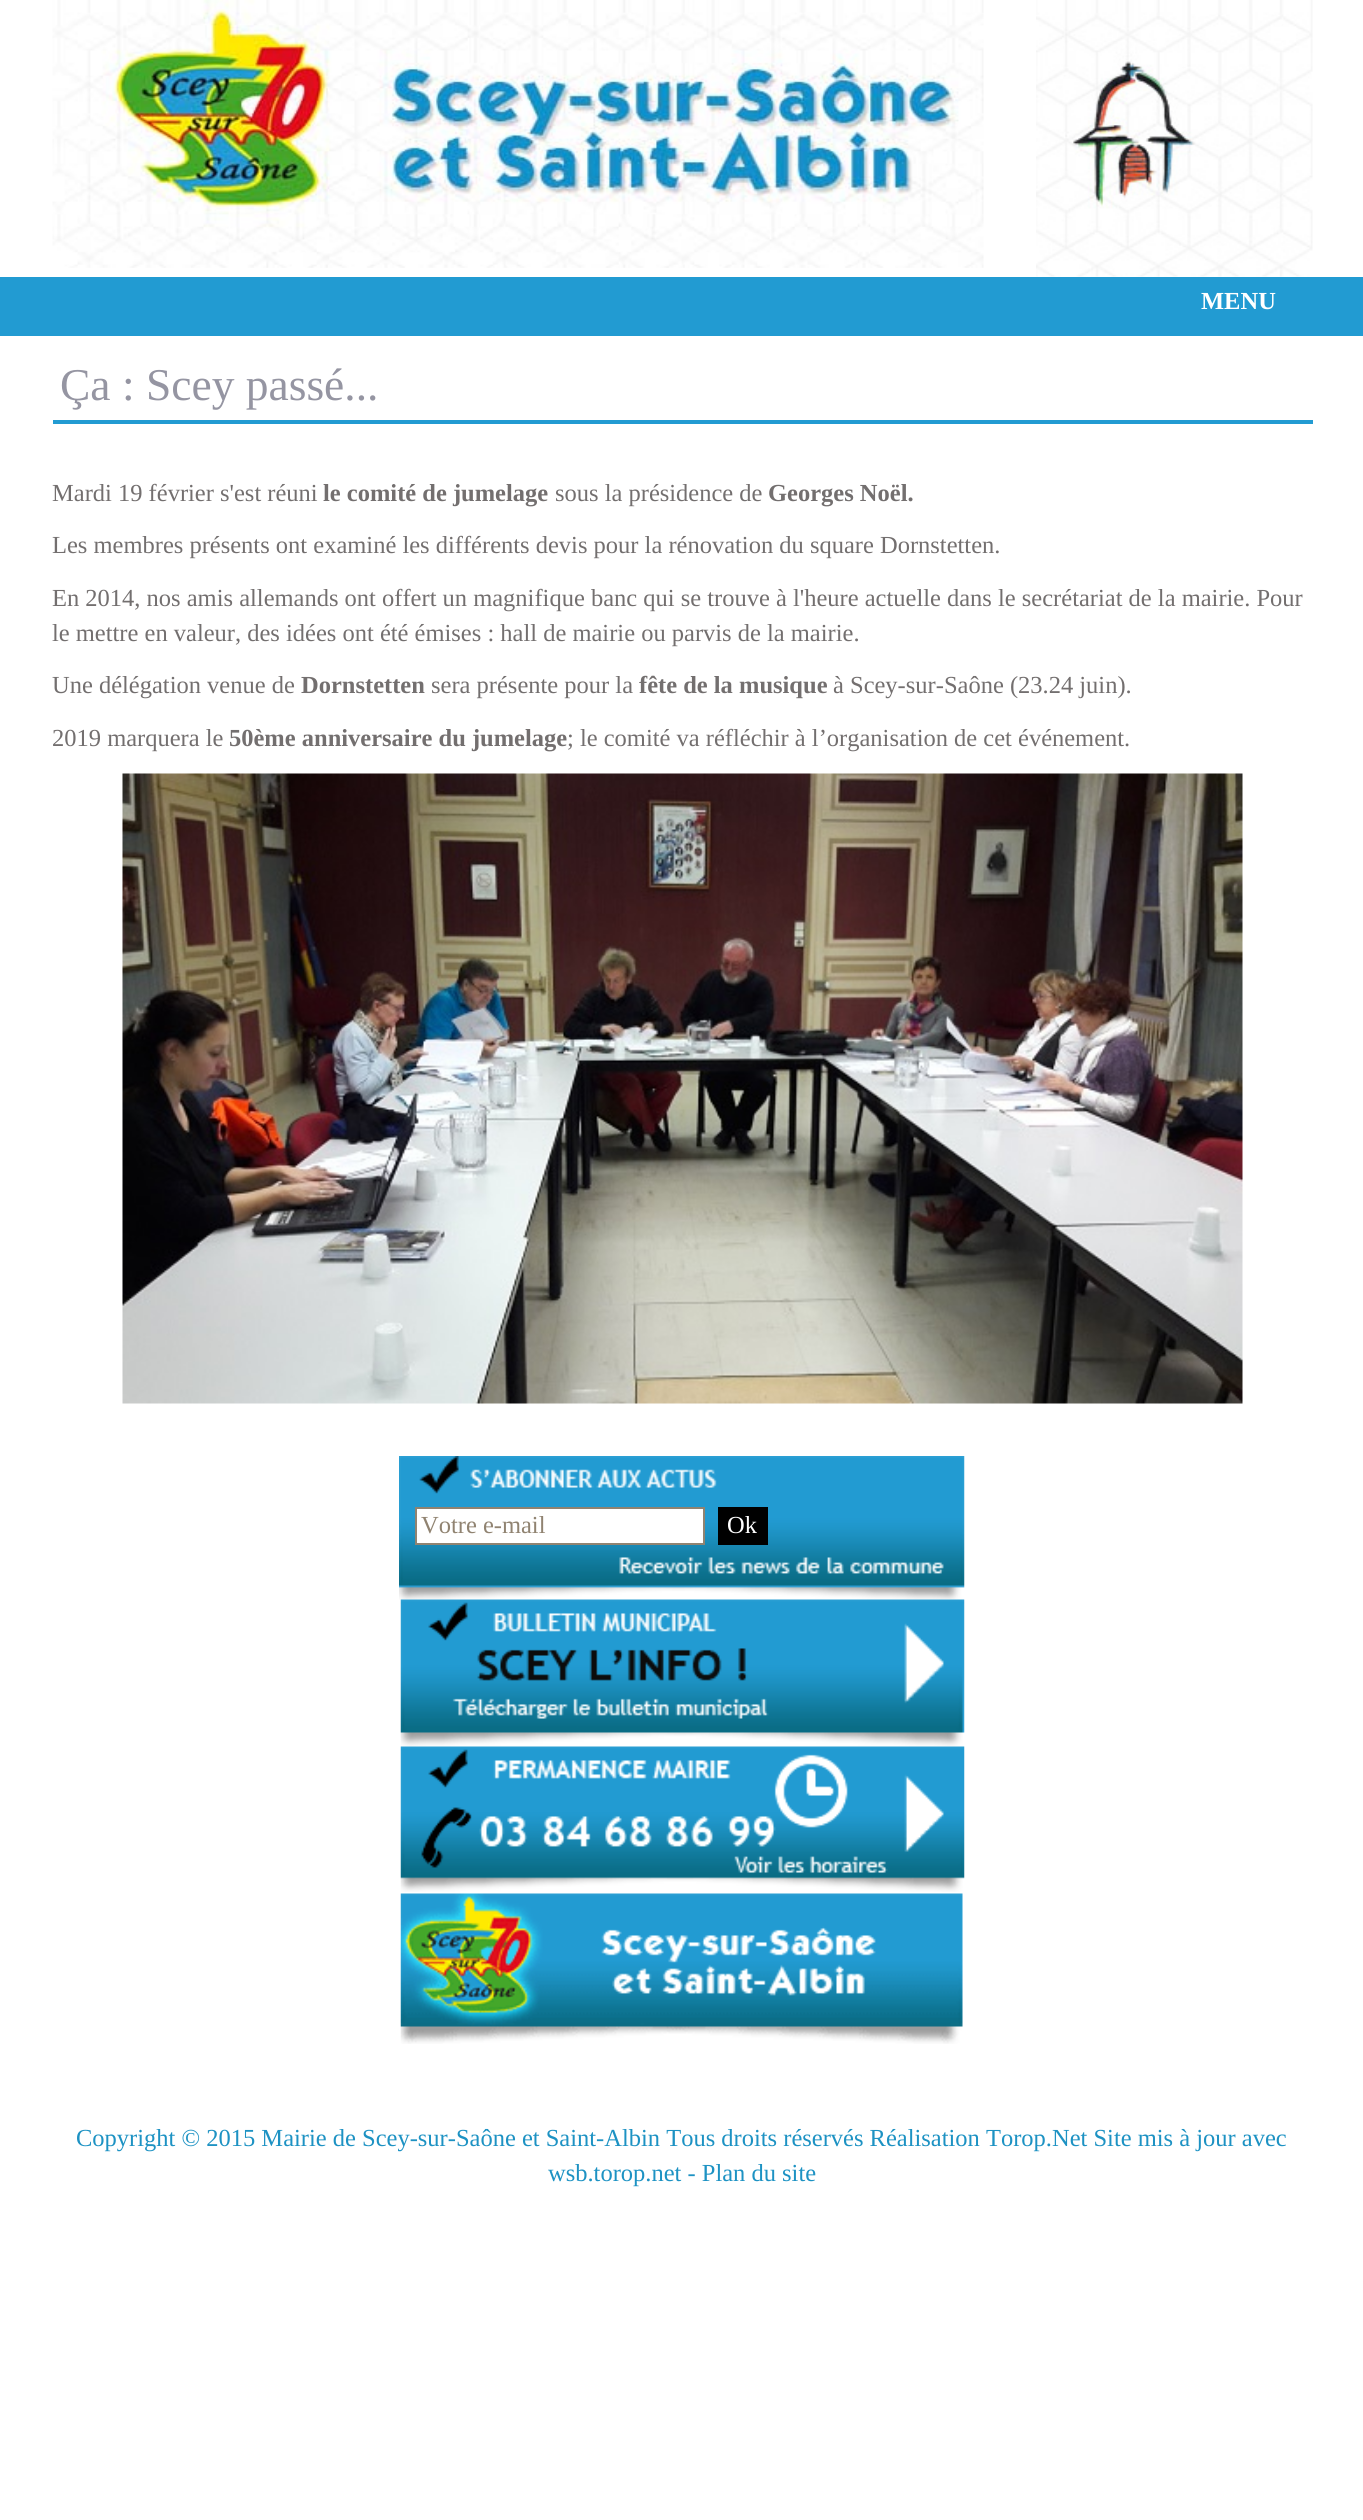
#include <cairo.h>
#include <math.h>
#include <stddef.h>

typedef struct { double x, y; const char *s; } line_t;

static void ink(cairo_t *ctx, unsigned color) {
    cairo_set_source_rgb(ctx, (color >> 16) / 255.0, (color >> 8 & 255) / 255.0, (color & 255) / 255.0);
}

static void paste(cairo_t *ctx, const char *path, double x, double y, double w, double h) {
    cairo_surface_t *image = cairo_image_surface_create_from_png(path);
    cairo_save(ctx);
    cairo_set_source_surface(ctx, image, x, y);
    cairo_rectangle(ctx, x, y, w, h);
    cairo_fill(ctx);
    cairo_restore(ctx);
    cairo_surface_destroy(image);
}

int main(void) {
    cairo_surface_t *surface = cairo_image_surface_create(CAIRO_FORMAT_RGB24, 1363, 2520);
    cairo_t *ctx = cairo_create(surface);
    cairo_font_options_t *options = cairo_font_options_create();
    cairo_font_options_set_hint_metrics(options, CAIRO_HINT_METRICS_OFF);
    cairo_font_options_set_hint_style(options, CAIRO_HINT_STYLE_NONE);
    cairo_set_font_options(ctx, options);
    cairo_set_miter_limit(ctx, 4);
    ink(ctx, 0xFFFFFF);
    cairo_paint(ctx);
    paste(ctx, "media/1.png", 52, 0, 932, 268);
    paste(ctx, "media/2.png", 1036, 0, 277, 277);
    ink(ctx, 0x229BD2);
    cairo_rectangle(ctx, 0, 277, 1363, 59);
    cairo_fill(ctx);
    cairo_select_font_face(ctx, "Liberation Serif", CAIRO_FONT_SLANT_NORMAL, CAIRO_FONT_WEIGHT_BOLD);
    cairo_set_font_size(ctx, 24.5);
    ink(ctx, 0xFFFFFF);
    cairo_move_to(ctx, 1201, 309);
    cairo_show_text(ctx, "MENU");
    ink(ctx, 0x229BD2);
    cairo_rectangle(ctx, 53, 420, 1260, 4);
    cairo_fill(ctx);
    cairo_select_font_face(ctx, "Liberation Serif", CAIRO_FONT_SLANT_NORMAL, CAIRO_FONT_WEIGHT_NORMAL);
    cairo_set_font_size(ctx, 45.5);
    ink(ctx, 0x9595A2);
    cairo_move_to(ctx, 60, 400);
    cairo_show_text(ctx, "Ça : Scey passé...");
    cairo_set_font_size(ctx, 24.5);
    ink(ctx, 0x736F6F);
    cairo_move_to(ctx, 52, 501);
    cairo_show_text(ctx, "Mardi 19 février s'est réuni");
    cairo_select_font_face(ctx, "Liberation Serif", CAIRO_FONT_SLANT_NORMAL, CAIRO_FONT_WEIGHT_BOLD);
    cairo_move_to(ctx, 323, 501);
    cairo_show_text(ctx, "le comité de jumelage");
    cairo_select_font_face(ctx, "Liberation Serif", CAIRO_FONT_SLANT_NORMAL, CAIRO_FONT_WEIGHT_NORMAL);
    cairo_move_to(ctx, 555, 501);
    cairo_show_text(ctx, "sous la présidence de");
    cairo_select_font_face(ctx, "Liberation Serif", CAIRO_FONT_SLANT_NORMAL, CAIRO_FONT_WEIGHT_BOLD);
    cairo_move_to(ctx, 768, 501);
    cairo_show_text(ctx, "Georges Noël.");
    cairo_select_font_face(ctx, "Liberation Serif", CAIRO_FONT_SLANT_NORMAL, CAIRO_FONT_WEIGHT_NORMAL);
    {
        static const line_t items[] = {
            {52, 553, "Les membres présents ont examiné les différents devis pour la rénovation du square Dornstetten."},
            {52, 606, "En 2014, nos amis allemands ont offert un magnifique banc qui se trouve à l'heure actuelle dans le secrétariat de la mairie. Pour"},
            {52, 641, "le mettre en valeur, des idées ont été émises : hall de mairie ou parvis de la mairie."},
            {52, 693, "Une délégation venue de"},
        };
        for (size_t i = 0; i < sizeof items / sizeof *items; i++) {
            cairo_move_to(ctx, items[i].x, items[i].y);
            cairo_show_text(ctx, items[i].s);
        }
    }
    cairo_select_font_face(ctx, "Liberation Serif", CAIRO_FONT_SLANT_NORMAL, CAIRO_FONT_WEIGHT_BOLD);
    cairo_move_to(ctx, 301, 693);
    cairo_show_text(ctx, "Dornstetten");
    cairo_select_font_face(ctx, "Liberation Serif", CAIRO_FONT_SLANT_NORMAL, CAIRO_FONT_WEIGHT_NORMAL);
    cairo_move_to(ctx, 431, 693);
    cairo_show_text(ctx, "sera présente pour la");
    cairo_select_font_face(ctx, "Liberation Serif", CAIRO_FONT_SLANT_NORMAL, CAIRO_FONT_WEIGHT_BOLD);
    cairo_move_to(ctx, 639, 693);
    cairo_show_text(ctx, "fête de la musique");
    cairo_select_font_face(ctx, "Liberation Serif", CAIRO_FONT_SLANT_NORMAL, CAIRO_FONT_WEIGHT_NORMAL);
    cairo_move_to(ctx, 833, 693);
    cairo_show_text(ctx, "à Scey-sur-Saône (23.24 juin).");
    cairo_move_to(ctx, 52, 746);
    cairo_show_text(ctx, "2019 marquera le");
    cairo_select_font_face(ctx, "Liberation Serif", CAIRO_FONT_SLANT_NORMAL, CAIRO_FONT_WEIGHT_BOLD);
    cairo_move_to(ctx, 229, 746);
    cairo_show_text(ctx, "50ème anniversaire du jumelage");
    cairo_select_font_face(ctx, "Liberation Serif", CAIRO_FONT_SLANT_NORMAL, CAIRO_FONT_WEIGHT_NORMAL);
    cairo_move_to(ctx, 567, 746);
    cairo_show_text(ctx, "; le comité va réfléchir à l’organisation de cet événement.");
    paste(ctx, "media/3.png", 122, 773, 1121, 631);
    paste(ctx, "media/4.png", 399, 1456, 566, 144);
    ink(ctx, 0xFFFFFF);
    cairo_rectangle(ctx, 416, 1508, 288, 36);
    cairo_fill_preserve(ctx);
    ink(ctx, 0x908371);
    cairo_stroke(ctx);
    cairo_move_to(ctx, 421, 1533);
    cairo_show_text(ctx, "Votre e-mail");
    ink(ctx, 0x000000);
    cairo_rectangle(ctx, 718, 1507, 50, 38);
    cairo_fill(ctx);
    ink(ctx, 0xFFFFFF);
    cairo_move_to(ctx, 727, 1533);
    cairo_show_text(ctx, "Ok");
    paste(ctx, "media/5.png", 400, 1599, 565, 148);
    paste(ctx, "media/6.png", 400, 1746, 565, 146);
    paste(ctx, "media/7.png", 400, 1893, 563, 151);
    ink(ctx, 0x1D92C3);
    cairo_move_to(ctx, 76, 2146);
    cairo_show_text(ctx, "Copyright © 2015 Mairie de Scey-sur-Saône et Saint-Albin Tous droits réservés Réalisation Torop.Net Site mis à jour avec");
    cairo_move_to(ctx, 548, 2181);
    cairo_show_text(ctx, "wsb.torop.net - Plan du site");
    cairo_surface_write_to_png(surface, "image.png");
    cairo_font_options_destroy(options);
    cairo_destroy(ctx);
    cairo_surface_destroy(surface);
    return 0;
}
